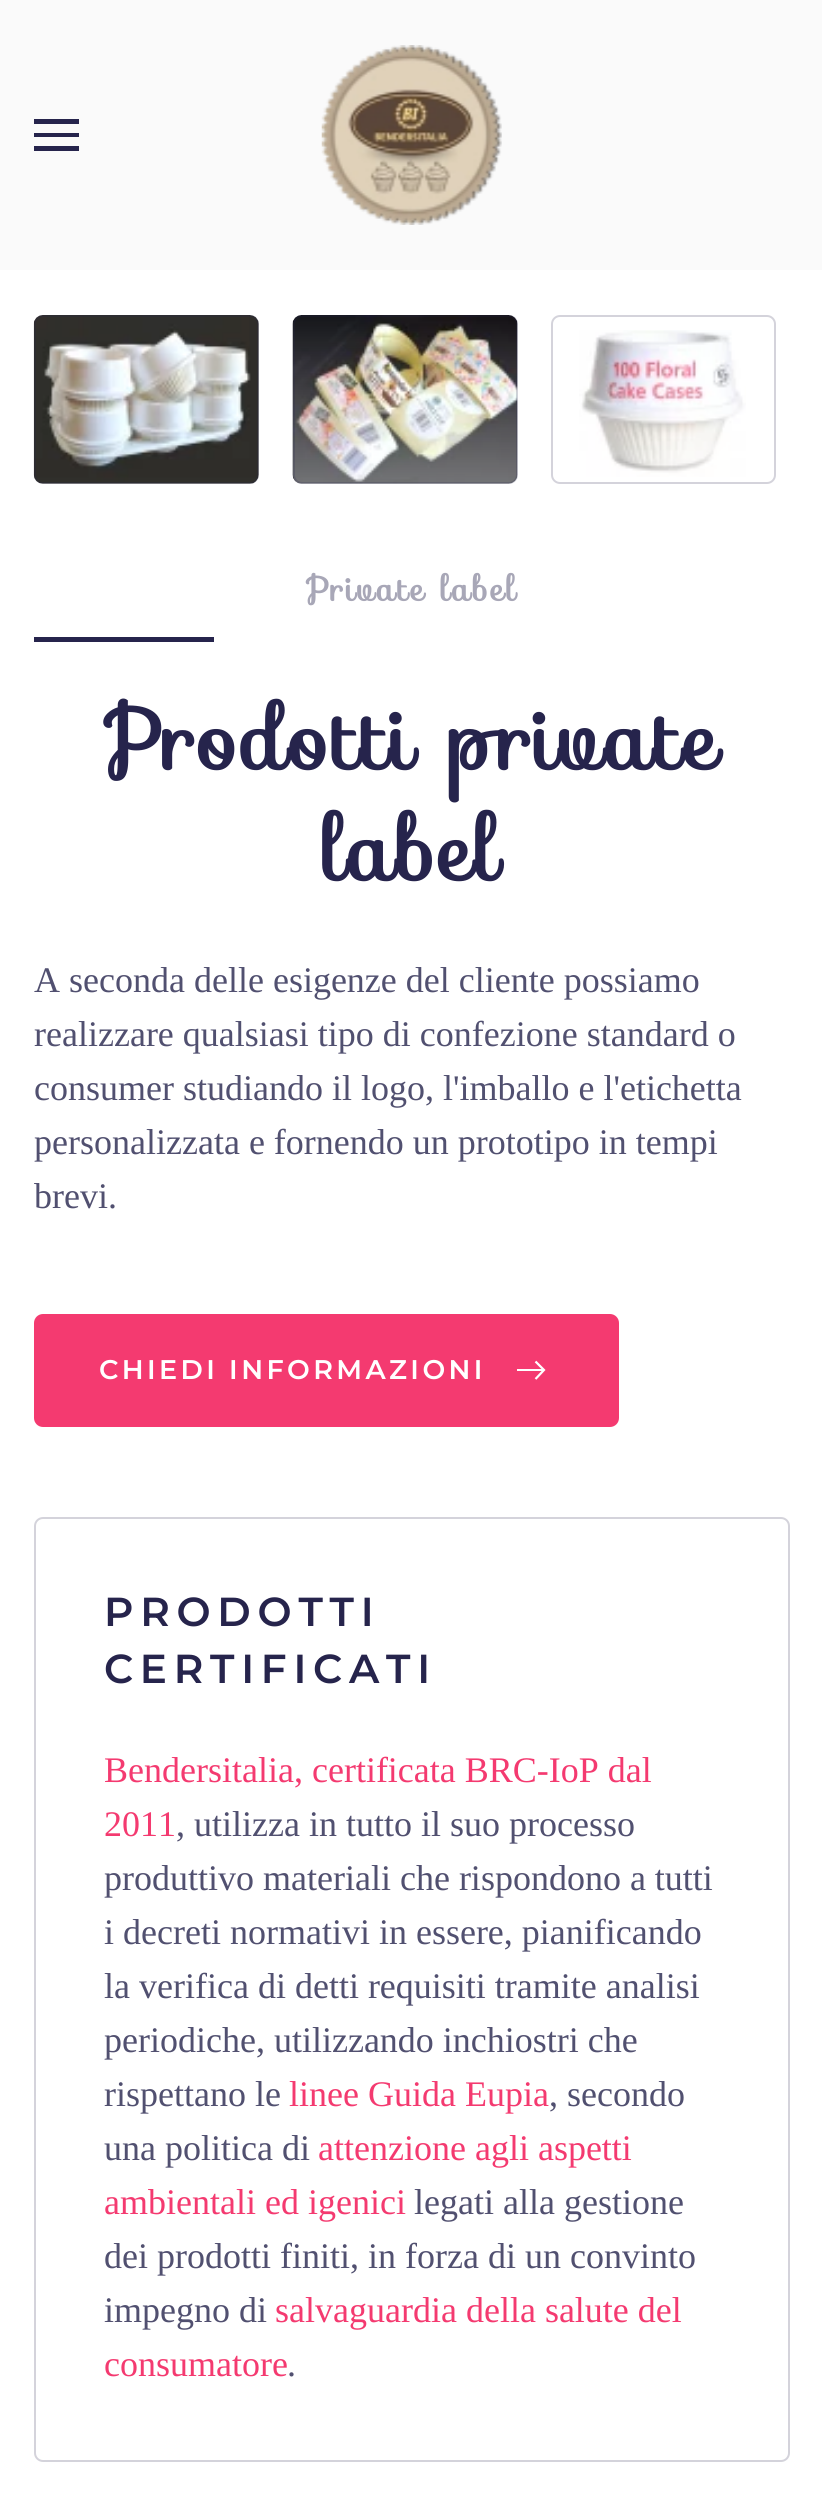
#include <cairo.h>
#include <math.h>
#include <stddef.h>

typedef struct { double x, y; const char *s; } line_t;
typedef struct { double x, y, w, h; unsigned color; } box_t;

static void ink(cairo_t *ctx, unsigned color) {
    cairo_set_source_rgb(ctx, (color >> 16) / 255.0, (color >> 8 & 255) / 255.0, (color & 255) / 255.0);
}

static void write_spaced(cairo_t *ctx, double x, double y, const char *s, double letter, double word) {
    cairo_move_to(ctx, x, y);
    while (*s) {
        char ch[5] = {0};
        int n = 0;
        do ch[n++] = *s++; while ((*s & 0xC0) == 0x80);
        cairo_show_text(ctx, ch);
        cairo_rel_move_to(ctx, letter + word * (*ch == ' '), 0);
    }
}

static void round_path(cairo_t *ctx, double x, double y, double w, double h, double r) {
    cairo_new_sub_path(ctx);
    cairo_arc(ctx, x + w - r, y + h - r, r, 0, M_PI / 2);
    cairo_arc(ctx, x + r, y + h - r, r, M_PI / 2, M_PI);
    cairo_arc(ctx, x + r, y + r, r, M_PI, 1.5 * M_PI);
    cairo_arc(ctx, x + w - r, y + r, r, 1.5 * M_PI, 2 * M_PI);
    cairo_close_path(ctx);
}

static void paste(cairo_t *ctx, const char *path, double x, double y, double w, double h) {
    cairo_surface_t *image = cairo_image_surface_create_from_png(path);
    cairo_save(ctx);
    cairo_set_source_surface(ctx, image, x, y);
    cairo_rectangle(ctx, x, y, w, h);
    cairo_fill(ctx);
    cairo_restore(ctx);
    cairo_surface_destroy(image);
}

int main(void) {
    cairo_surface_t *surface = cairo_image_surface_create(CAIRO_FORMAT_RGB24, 822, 2501);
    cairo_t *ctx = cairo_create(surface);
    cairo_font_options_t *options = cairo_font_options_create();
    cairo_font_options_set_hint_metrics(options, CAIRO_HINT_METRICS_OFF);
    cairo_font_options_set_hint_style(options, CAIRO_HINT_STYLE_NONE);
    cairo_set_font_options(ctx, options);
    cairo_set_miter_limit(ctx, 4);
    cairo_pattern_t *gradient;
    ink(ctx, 0xFFFFFF);
    cairo_paint(ctx);
    {
        static const box_t items[] = {
            {0, 0, 822, 270, 0xFAFAFA},
            {34, 119, 45, 5, 0x26244C},
            {34, 133, 45, 4, 0x26244C},
            {34, 146, 45, 5, 0x26244C},
        };
        for (size_t i = 0; i < sizeof items / sizeof *items; i++) {
            ink(ctx, items[i].color);
            cairo_rectangle(ctx, items[i].x, items[i].y, items[i].w, items[i].h);
            cairo_fill(ctx);
        }
    }
    paste(ctx, "media/1.png", 321, 45, 181, 180);
    paste(ctx, "media/2.png", 33, 315, 226, 169);
    round_path(ctx, 35, 316, 223, 167, 8);
    cairo_set_source_rgba(ctx, 0.149, 0.141, 0.298, 0.2);
    cairo_stroke(ctx);
    paste(ctx, "media/3.png", 292, 315, 226, 169);
    gradient = cairo_pattern_create_linear(405, 315, 405, 484);
    cairo_pattern_add_color_stop_rgba(gradient, 0, 1, 1, 1, 0);
    cairo_pattern_add_color_stop_rgba(gradient, 1, 1, 1, 1, 0.4);
    cairo_set_source(ctx, gradient);
    cairo_pattern_destroy(gradient);
    round_path(ctx, 293, 315, 225, 169, 9);
    cairo_fill(ctx);
    round_path(ctx, 294, 316, 223, 167, 8);
    cairo_set_source_rgba(ctx, 0.149, 0.141, 0.298, 0.2);
    cairo_stroke(ctx);
    paste(ctx, "media/4.png", 579, 330, 167, 147);
    gradient = cairo_pattern_create_linear(664, 315, 664, 484);
    cairo_pattern_add_color_stop_rgba(gradient, 0, 1, 1, 1, 0);
    cairo_pattern_add_color_stop_rgba(gradient, 1, 1, 1, 1, 0.4);
    cairo_set_source(ctx, gradient);
    cairo_pattern_destroy(gradient);
    round_path(ctx, 552, 316, 223, 167, 8);
    cairo_fill_preserve(ctx);
    ink(ctx, 0xD4D3DB);
    cairo_stroke(ctx);
    cairo_select_font_face(ctx, "Sofia", CAIRO_FONT_SLANT_NORMAL, CAIRO_FONT_WEIGHT_BOLD);
    cairo_set_font_size(ctx, 33.75);
    ink(ctx, 0xA8A7B7);
    write_spaced(ctx, 306, 601, "Private label", 2.25, 0);
    ink(ctx, 0x26244C);
    cairo_rectangle(ctx, 34, 637, 180, 5);
    cairo_fill(ctx);
    cairo_set_font_size(ctx, 85.5);
    write_spaced(ctx, 104, 770, "Prodotti private", 2.25, 0);
    write_spaced(ctx, 322, 881, "label", 2.25, 0);
    cairo_select_font_face(ctx, "Liberation Serif", CAIRO_FONT_SLANT_NORMAL, CAIRO_FONT_WEIGHT_NORMAL);
    cairo_set_font_size(ctx, 36);
    ink(ctx, 0x515070);
    {
        static const line_t items[] = {
            {34, 992, "A seconda delle esigenze del cliente possiamo"},
            {34, 1046, "realizzare qualsiasi tipo di confezione standard o"},
            {34, 1100, "consumer studiando il logo, l'imballo e l'etichetta"},
            {34, 1154, "personalizzata e fornendo un prototipo in tempi"},
            {34, 1208, "brevi."},
        };
        for (size_t i = 0; i < sizeof items / sizeof *items; i++) {
            cairo_move_to(ctx, items[i].x, items[i].y);
            cairo_show_text(ctx, items[i].s);
        }
    }
    ink(ctx, 0xF43A70);
    round_path(ctx, 34, 1314, 585, 113, 9);
    cairo_fill(ctx);
    cairo_select_font_face(ctx, "Montserrat Thin", CAIRO_FONT_SLANT_NORMAL, CAIRO_FONT_WEIGHT_NORMAL);
    cairo_set_font_size(ctx, 27);
    ink(ctx, 0xFFFFFF);
    write_spaced(ctx, 99, 1379, "CHIEDI INFORMAZIONI", 3.4, 0);
    cairo_rectangle(ctx, 517, 1369, 27, 2);
    cairo_fill(ctx);
    cairo_new_path(ctx);
    cairo_move_to(ctx, 535.5, 1379);
    cairo_line_to(ctx, 544, 1370);
    cairo_line_to(ctx, 535.5, 1361.5);
    cairo_set_line_width(ctx, 2.2);
    cairo_stroke(ctx);
    round_path(ctx, 35, 1518, 754, 943, 8);
    ink(ctx, 0xD4D3DB);
    cairo_set_line_width(ctx, 2);
    cairo_stroke(ctx);
    cairo_set_font_size(ctx, 40.5);
    ink(ctx, 0x26244C);
    write_spaced(ctx, 104, 1626, "PRODOTTI", 6.75, 0);
    write_spaced(ctx, 104, 1683, "CERTIFICATI", 6.75, 0);
    cairo_select_font_face(ctx, "Liberation Serif", CAIRO_FONT_SLANT_NORMAL, CAIRO_FONT_WEIGHT_NORMAL);
    cairo_set_font_size(ctx, 36);
    ink(ctx, 0xF43A70);
    cairo_move_to(ctx, 104, 1782);
    cairo_show_text(ctx, "Bendersitalia, certificata BRC-IoP dal");
    cairo_move_to(ctx, 104, 1836);
    cairo_show_text(ctx, "2011");
    ink(ctx, 0x515070);
    {
        static const line_t items[] = {
            {176, 1836, ", utilizza in tutto il suo processo"},
            {104, 1890, "produttivo materiali che rispondono a tutti"},
            {104, 1944, "i decreti normativi in essere, pianificando"},
            {104, 1998, "la verifica di detti requisiti tramite analisi"},
            {104, 2052, "periodiche, utilizzando inchiostri che"},
            {104, 2106, "rispettano le"},
        };
        for (size_t i = 0; i < sizeof items / sizeof *items; i++) {
            cairo_move_to(ctx, items[i].x, items[i].y);
            cairo_show_text(ctx, items[i].s);
        }
    }
    ink(ctx, 0xF43A70);
    cairo_move_to(ctx, 289, 2106);
    cairo_show_text(ctx, "linee Guida Eupia");
    ink(ctx, 0x515070);
    cairo_move_to(ctx, 549, 2106);
    cairo_show_text(ctx, ", secondo");
    cairo_move_to(ctx, 104, 2160);
    cairo_show_text(ctx, "una politica di");
    ink(ctx, 0xF43A70);
    cairo_move_to(ctx, 318, 2160);
    cairo_show_text(ctx, "attenzione agli aspetti");
    cairo_move_to(ctx, 104, 2214);
    cairo_show_text(ctx, "ambientali ed igenici");
    ink(ctx, 0x515070);
    {
        static const line_t items[] = {
            {414, 2214, "legati alla gestione"},
            {104, 2268, "dei prodotti finiti, in forza di un convinto"},
            {104, 2322, "impegno di"},
        };
        for (size_t i = 0; i < sizeof items / sizeof *items; i++) {
            cairo_move_to(ctx, items[i].x, items[i].y);
            cairo_show_text(ctx, items[i].s);
        }
    }
    ink(ctx, 0xF43A70);
    cairo_move_to(ctx, 275, 2322);
    cairo_show_text(ctx, "salvaguardia della salute del");
    cairo_move_to(ctx, 104, 2376);
    cairo_show_text(ctx, "consumatore");
    ink(ctx, 0x515070);
    cairo_move_to(ctx, 287, 2376);
    cairo_show_text(ctx, ".");
    cairo_surface_write_to_png(surface, "image.png");
    cairo_font_options_destroy(options);
    cairo_destroy(ctx);
    cairo_surface_destroy(surface);
    return 0;
}
